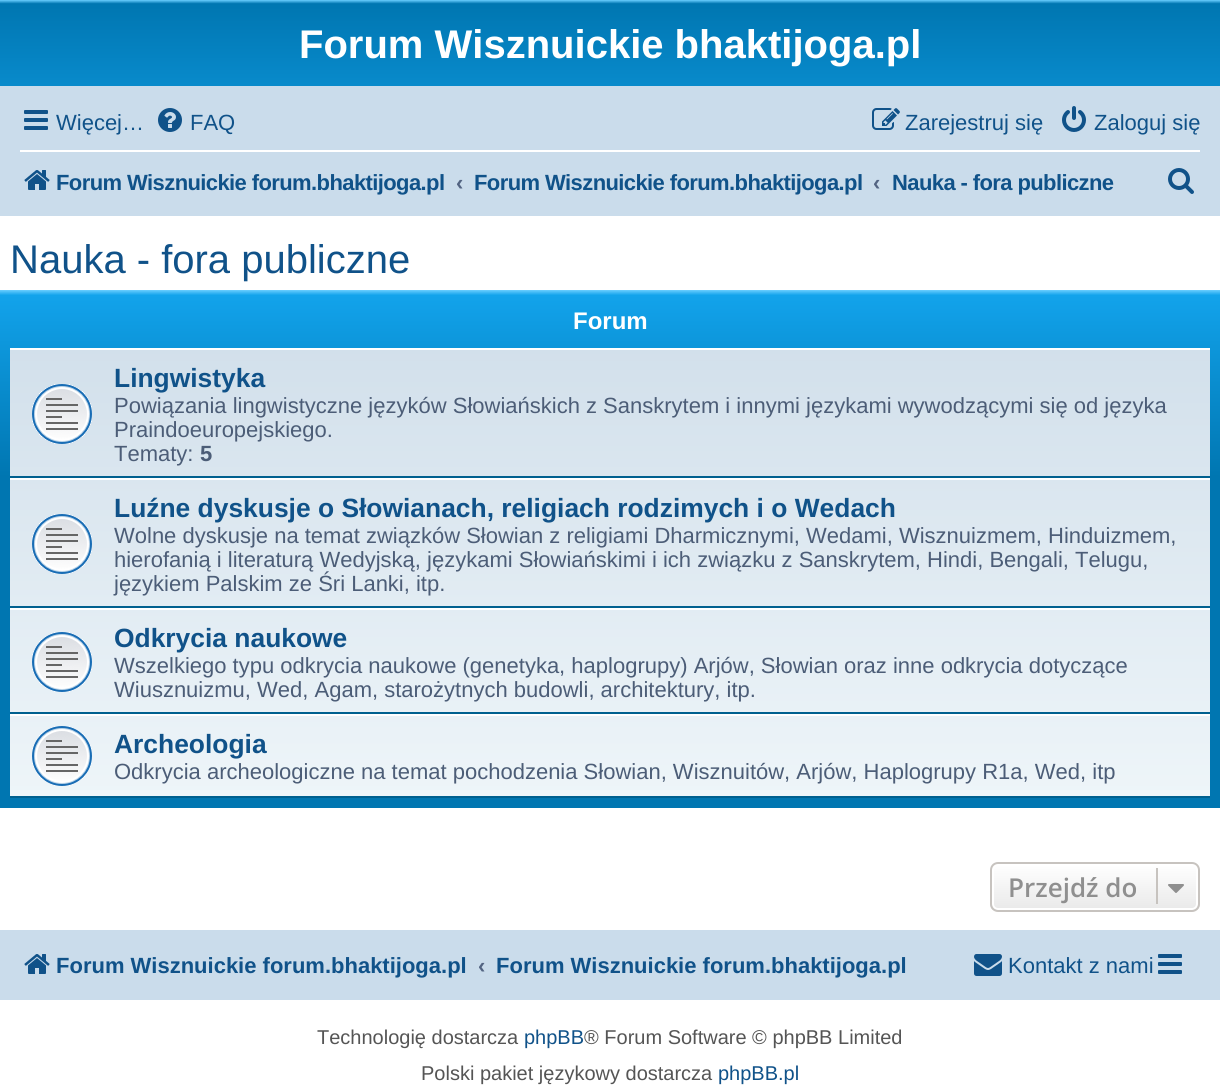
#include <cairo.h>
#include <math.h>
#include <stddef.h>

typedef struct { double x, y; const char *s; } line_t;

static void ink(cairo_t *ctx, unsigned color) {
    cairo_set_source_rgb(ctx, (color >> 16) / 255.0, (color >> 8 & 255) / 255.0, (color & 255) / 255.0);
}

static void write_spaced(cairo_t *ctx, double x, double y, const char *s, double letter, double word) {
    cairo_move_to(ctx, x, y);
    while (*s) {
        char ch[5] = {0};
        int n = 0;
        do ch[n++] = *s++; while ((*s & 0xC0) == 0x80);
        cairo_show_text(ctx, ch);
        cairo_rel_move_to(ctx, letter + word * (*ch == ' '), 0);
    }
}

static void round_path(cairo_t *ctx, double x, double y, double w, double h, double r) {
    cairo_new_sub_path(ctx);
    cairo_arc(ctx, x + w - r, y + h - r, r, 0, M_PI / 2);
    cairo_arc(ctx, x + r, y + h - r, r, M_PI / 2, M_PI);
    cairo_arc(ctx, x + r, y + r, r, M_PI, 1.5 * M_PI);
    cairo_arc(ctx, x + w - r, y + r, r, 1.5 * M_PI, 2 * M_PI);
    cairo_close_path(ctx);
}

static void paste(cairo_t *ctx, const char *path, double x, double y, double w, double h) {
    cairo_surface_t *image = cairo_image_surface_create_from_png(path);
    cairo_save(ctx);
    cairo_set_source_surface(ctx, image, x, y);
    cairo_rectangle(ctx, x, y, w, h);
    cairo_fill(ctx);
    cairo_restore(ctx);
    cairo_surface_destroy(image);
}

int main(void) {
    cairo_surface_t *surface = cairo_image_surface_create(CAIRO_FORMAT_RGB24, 1220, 1087);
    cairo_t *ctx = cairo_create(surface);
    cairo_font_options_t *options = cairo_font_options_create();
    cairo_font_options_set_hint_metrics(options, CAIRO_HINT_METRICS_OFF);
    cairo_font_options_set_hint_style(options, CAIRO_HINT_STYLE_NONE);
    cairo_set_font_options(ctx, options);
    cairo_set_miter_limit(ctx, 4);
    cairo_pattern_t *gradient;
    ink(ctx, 0xFFFFFF);
    cairo_paint(ctx);
    gradient = cairo_pattern_create_linear(610, 0, 610, 184);
    cairo_pattern_add_color_stop_rgba(gradient, 0, 0.416, 0.808, 1, 1);
    cairo_pattern_add_color_stop_rgba(gradient, 0.02, 0, 0.463, 0.694, 1);
    cairo_pattern_add_color_stop_rgba(gradient, 1, 0.071, 0.639, 0.922, 1);
    cairo_set_source(ctx, gradient);
    cairo_pattern_destroy(gradient);
    cairo_rectangle(ctx, 0, 0, 1220, 86);
    cairo_fill(ctx);
    cairo_select_font_face(ctx, "Liberation Sans", CAIRO_FONT_SLANT_NORMAL, CAIRO_FONT_WEIGHT_BOLD);
    cairo_set_font_size(ctx, 40);
    ink(ctx, 0xFFFFFF);
    cairo_move_to(ctx, 299, 58);
    cairo_show_text(ctx, "Forum Wisznuickie bhaktijoga.pl");
    ink(ctx, 0xCADCEB);
    cairo_rectangle(ctx, 0, 86, 1220, 130);
    cairo_fill(ctx);
    paste(ctx, "media/1.png", 24, 110, 24, 20);
    cairo_select_font_face(ctx, "Liberation Sans", CAIRO_FONT_SLANT_NORMAL, CAIRO_FONT_WEIGHT_NORMAL);
    cairo_set_font_size(ctx, 22);
    ink(ctx, 0x105289);
    cairo_move_to(ctx, 56, 130);
    cairo_show_text(ctx, "Więcej…");
    paste(ctx, "media/2.png", 158, 108, 24, 24);
    cairo_move_to(ctx, 190, 130);
    cairo_show_text(ctx, "FAQ");
    paste(ctx, "media/3.png", 872, 108, 28, 22);
    cairo_move_to(ctx, 905, 130);
    cairo_show_text(ctx, "Zarejestruj się");
    paste(ctx, "media/4.png", 1062, 106, 24, 26);
    cairo_move_to(ctx, 1094, 130);
    cairo_show_text(ctx, "Zaloguj się");
    ink(ctx, 0xFFFFFF);
    cairo_rectangle(ctx, 20, 150, 1180, 2);
    cairo_fill(ctx);
    paste(ctx, "media/5.png", 24, 170, 26, 20);
    cairo_select_font_face(ctx, "Liberation Sans", CAIRO_FONT_SLANT_NORMAL, CAIRO_FONT_WEIGHT_BOLD);
    ink(ctx, 0x105289);
    write_spaced(ctx, 56, 190, "Forum Wisznuickie forum.bhaktijoga.pl", -0.6, 0);
    ink(ctx, 0x536482);
    cairo_move_to(ctx, 456, 190);
    cairo_show_text(ctx, "‹");
    ink(ctx, 0x105289);
    write_spaced(ctx, 474, 190, "Forum Wisznuickie forum.bhaktijoga.pl", -0.6, 0);
    ink(ctx, 0x536482);
    cairo_move_to(ctx, 873, 190);
    cairo_show_text(ctx, "‹");
    ink(ctx, 0x105289);
    write_spaced(ctx, 892, 190, "Nauka - fora publiczne", -0.6, 0);
    paste(ctx, "media/6.png", 1168, 168, 26, 26);
    cairo_select_font_face(ctx, "Liberation Sans", CAIRO_FONT_SLANT_NORMAL, CAIRO_FONT_WEIGHT_NORMAL);
    cairo_set_font_size(ctx, 40);
    cairo_move_to(ctx, 10, 273);
    cairo_show_text(ctx, "Nauka - fora publiczne");
    gradient = cairo_pattern_create_linear(610, 290, 610, 808);
    cairo_pattern_add_color_stop_rgba(gradient, 0, 0.416, 0.808, 1, 1);
    cairo_pattern_add_color_stop_rgba(gradient, 0.01, 0.071, 0.639, 0.922, 1);
    cairo_pattern_add_color_stop_rgba(gradient, 0.36, 0, 0.463, 0.694, 1);
    cairo_pattern_add_color_stop_rgba(gradient, 1, 0, 0.463, 0.694, 1);
    cairo_set_source(ctx, gradient);
    cairo_pattern_destroy(gradient);
    cairo_rectangle(ctx, 0, 290, 1220, 518);
    cairo_fill(ctx);
    cairo_select_font_face(ctx, "Liberation Sans", CAIRO_FONT_SLANT_NORMAL, CAIRO_FONT_WEIGHT_BOLD);
    cairo_set_font_size(ctx, 24);
    ink(ctx, 0xFFFFFF);
    cairo_move_to(ctx, 573, 329);
    cairo_show_text(ctx, "Forum");
    gradient = cairo_pattern_create_linear(610, 348, 610, 798);
    cairo_pattern_add_color_stop_rgba(gradient, 0, 0.824, 0.878, 0.922, 1);
    cairo_pattern_add_color_stop_rgba(gradient, 1, 0.933, 0.961, 0.976, 1);
    cairo_set_source(ctx, gradient);
    cairo_pattern_destroy(gradient);
    cairo_rectangle(ctx, 10, 350, 1200, 446);
    cairo_fill(ctx);
    ink(ctx, 0xFFFFFF);
    cairo_rectangle(ctx, 10, 348, 1200, 2);
    cairo_fill(ctx);
    ink(ctx, 0x00608F);
    cairo_rectangle(ctx, 10, 476, 1200, 2);
    cairo_fill(ctx);
    paste(ctx, "media/7.png", 32, 384, 60, 60);
    cairo_set_font_size(ctx, 26.4);
    ink(ctx, 0x105289);
    cairo_move_to(ctx, 114, 387);
    cairo_show_text(ctx, "Lingwistyka");
    cairo_select_font_face(ctx, "Liberation Sans", CAIRO_FONT_SLANT_NORMAL, CAIRO_FONT_WEIGHT_NORMAL);
    cairo_set_font_size(ctx, 22);
    ink(ctx, 0x4C5D77);
    {
        static const line_t items[] = {
            {114, 413, "Powiązania lingwistyczne języków Słowiańskich z Sanskrytem i innymi językami wywodzącymi się od języka"},
            {114, 437, "Praindoeuropejskiego."},
            {114, 461, "Tematy:"},
        };
        for (size_t i = 0; i < sizeof items / sizeof *items; i++) {
            cairo_move_to(ctx, items[i].x, items[i].y);
            cairo_show_text(ctx, items[i].s);
        }
    }
    cairo_select_font_face(ctx, "Liberation Sans", CAIRO_FONT_SLANT_NORMAL, CAIRO_FONT_WEIGHT_BOLD);
    cairo_move_to(ctx, 200, 461);
    cairo_show_text(ctx, "5");
    ink(ctx, 0xFFFFFF);
    cairo_rectangle(ctx, 10, 478, 1200, 2);
    cairo_fill(ctx);
    ink(ctx, 0x00608F);
    cairo_rectangle(ctx, 10, 606, 1200, 2);
    cairo_fill(ctx);
    paste(ctx, "media/8.png", 32, 514, 60, 60);
    cairo_set_font_size(ctx, 26.4);
    ink(ctx, 0x105289);
    cairo_move_to(ctx, 114, 517);
    cairo_show_text(ctx, "Luźne dyskusje o Słowianach, religiach rodzimych i o Wedach");
    cairo_select_font_face(ctx, "Liberation Sans", CAIRO_FONT_SLANT_NORMAL, CAIRO_FONT_WEIGHT_NORMAL);
    cairo_set_font_size(ctx, 22);
    ink(ctx, 0x4C5D77);
    {
        static const line_t items[] = {
            {114, 543, "Wolne dyskusje na temat związków Słowian z religiami Dharmicznymi, Wedami, Wisznuizmem, Hinduizmem,"},
            {114, 567, "hierofanią i literaturą Wedyjską, językami Słowiańskimi i ich związku z Sanskrytem, Hindi, Bengali, Telugu,"},
            {114, 591, "językiem Palskim ze Śri Lanki, itp."},
        };
        for (size_t i = 0; i < sizeof items / sizeof *items; i++) {
            cairo_move_to(ctx, items[i].x, items[i].y);
            cairo_show_text(ctx, items[i].s);
        }
    }
    ink(ctx, 0xFFFFFF);
    cairo_rectangle(ctx, 10, 608, 1200, 2);
    cairo_fill(ctx);
    ink(ctx, 0x00608F);
    cairo_rectangle(ctx, 10, 712, 1200, 2);
    cairo_fill(ctx);
    paste(ctx, "media/9.png", 32, 632, 60, 60);
    cairo_select_font_face(ctx, "Liberation Sans", CAIRO_FONT_SLANT_NORMAL, CAIRO_FONT_WEIGHT_BOLD);
    cairo_set_font_size(ctx, 26.4);
    ink(ctx, 0x105289);
    cairo_move_to(ctx, 114, 647);
    cairo_show_text(ctx, "Odkrycia naukowe");
    cairo_select_font_face(ctx, "Liberation Sans", CAIRO_FONT_SLANT_NORMAL, CAIRO_FONT_WEIGHT_NORMAL);
    cairo_set_font_size(ctx, 22);
    ink(ctx, 0x4C5D77);
    cairo_move_to(ctx, 114, 673);
    cairo_show_text(ctx, "Wszelkiego typu odkrycia naukowe (genetyka, haplogrupy) Arjów, Słowian oraz inne odkrycia dotyczące");
    cairo_move_to(ctx, 114, 697);
    cairo_show_text(ctx, "Wiusznuizmu, Wed, Agam, starożytnych budowli, architektury, itp.");
    ink(ctx, 0xFFFFFF);
    cairo_rectangle(ctx, 10, 714, 1200, 2);
    cairo_fill(ctx);
    ink(ctx, 0x00608F);
    cairo_rectangle(ctx, 10, 796, 1200, 2);
    cairo_fill(ctx);
    paste(ctx, "media/10.png", 32, 726, 60, 60);
    cairo_select_font_face(ctx, "Liberation Sans", CAIRO_FONT_SLANT_NORMAL, CAIRO_FONT_WEIGHT_BOLD);
    cairo_set_font_size(ctx, 26.4);
    ink(ctx, 0x105289);
    cairo_move_to(ctx, 114, 753);
    cairo_show_text(ctx, "Archeologia");
    cairo_select_font_face(ctx, "Liberation Sans", CAIRO_FONT_SLANT_NORMAL, CAIRO_FONT_WEIGHT_NORMAL);
    cairo_set_font_size(ctx, 22);
    ink(ctx, 0x4C5D77);
    cairo_move_to(ctx, 114, 779);
    cairo_show_text(ctx, "Odkrycia archeologiczne na temat pochodzenia Słowian, Wisznuitów, Arjów, Haplogrupy R1a, Wed, itp");
    cairo_save(ctx);
    round_path(ctx, 990, 862, 210, 50, 8);
    cairo_clip(ctx);
    gradient = cairo_pattern_create_linear(1095, 864, 1095, 910);
    cairo_pattern_add_color_stop_rgba(gradient, 0, 1, 1, 1, 1);
    cairo_pattern_add_color_stop_rgba(gradient, 1, 0.914, 0.914, 0.914, 1);
    cairo_set_source(ctx, gradient);
    cairo_pattern_destroy(gradient);
    cairo_rectangle(ctx, 990, 864, 210, 46);
    cairo_fill(ctx);
    cairo_restore(ctx);
    round_path(ctx, 993, 865, 204, 44, 5);
    ink(ctx, 0xFFFFFF);
    cairo_stroke(ctx);
    round_path(ctx, 991, 863, 208, 48, 7);
    ink(ctx, 0xC7C3BF);
    cairo_stroke(ctx);
    cairo_select_font_face(ctx, "Open Sans SemiBold", CAIRO_FONT_SLANT_NORMAL, CAIRO_FONT_WEIGHT_NORMAL);
    cairo_set_font_size(ctx, 26);
    ink(ctx, 0x8F8F8F);
    cairo_move_to(ctx, 1008, 897);
    cairo_show_text(ctx, "Przejdź do");
    ink(ctx, 0xC7C3BF);
    cairo_rectangle(ctx, 1156, 868, 2, 36);
    cairo_fill(ctx);
    paste(ctx, "media/11.png", 1168, 884, 16, 9);
    ink(ctx, 0xCADCEB);
    cairo_rectangle(ctx, 0, 930, 1220, 70);
    cairo_fill(ctx);
    paste(ctx, "media/5.png", 24, 954, 26, 20);
    cairo_select_font_face(ctx, "Liberation Sans", CAIRO_FONT_SLANT_NORMAL, CAIRO_FONT_WEIGHT_BOLD);
    cairo_set_font_size(ctx, 22);
    ink(ctx, 0x105289);
    cairo_move_to(ctx, 56, 973);
    cairo_show_text(ctx, "Forum Wisznuickie forum.bhaktijoga.pl");
    ink(ctx, 0x536482);
    cairo_move_to(ctx, 478, 973);
    cairo_show_text(ctx, "‹");
    ink(ctx, 0x105289);
    cairo_move_to(ctx, 496, 973);
    cairo_show_text(ctx, "Forum Wisznuickie forum.bhaktijoga.pl");
    paste(ctx, "media/12.png", 974, 954, 28, 22);
    cairo_select_font_face(ctx, "Liberation Sans", CAIRO_FONT_SLANT_NORMAL, CAIRO_FONT_WEIGHT_NORMAL);
    cairo_move_to(ctx, 1008, 973);
    cairo_show_text(ctx, "Kontakt z nami");
    paste(ctx, "media/1.png", 1158, 954, 24, 20);
    cairo_set_font_size(ctx, 20);
    ink(ctx, 0x555555);
    cairo_move_to(ctx, 317, 1044);
    cairo_show_text(ctx, "Technologię dostarcza");
    ink(ctx, 0x105289);
    cairo_move_to(ctx, 524, 1044);
    cairo_show_text(ctx, "phpBB");
    ink(ctx, 0x555555);
    cairo_move_to(ctx, 584, 1044);
    cairo_show_text(ctx, "® Forum Software © phpBB Limited");
    cairo_move_to(ctx, 421, 1080);
    cairo_show_text(ctx, "Polski pakiet językowy dostarcza");
    ink(ctx, 0x105289);
    cairo_move_to(ctx, 718, 1080);
    cairo_show_text(ctx, "phpBB.pl");
    cairo_surface_write_to_png(surface, "image.png");
    cairo_font_options_destroy(options);
    cairo_destroy(ctx);
    cairo_surface_destroy(surface);
    return 0;
}
